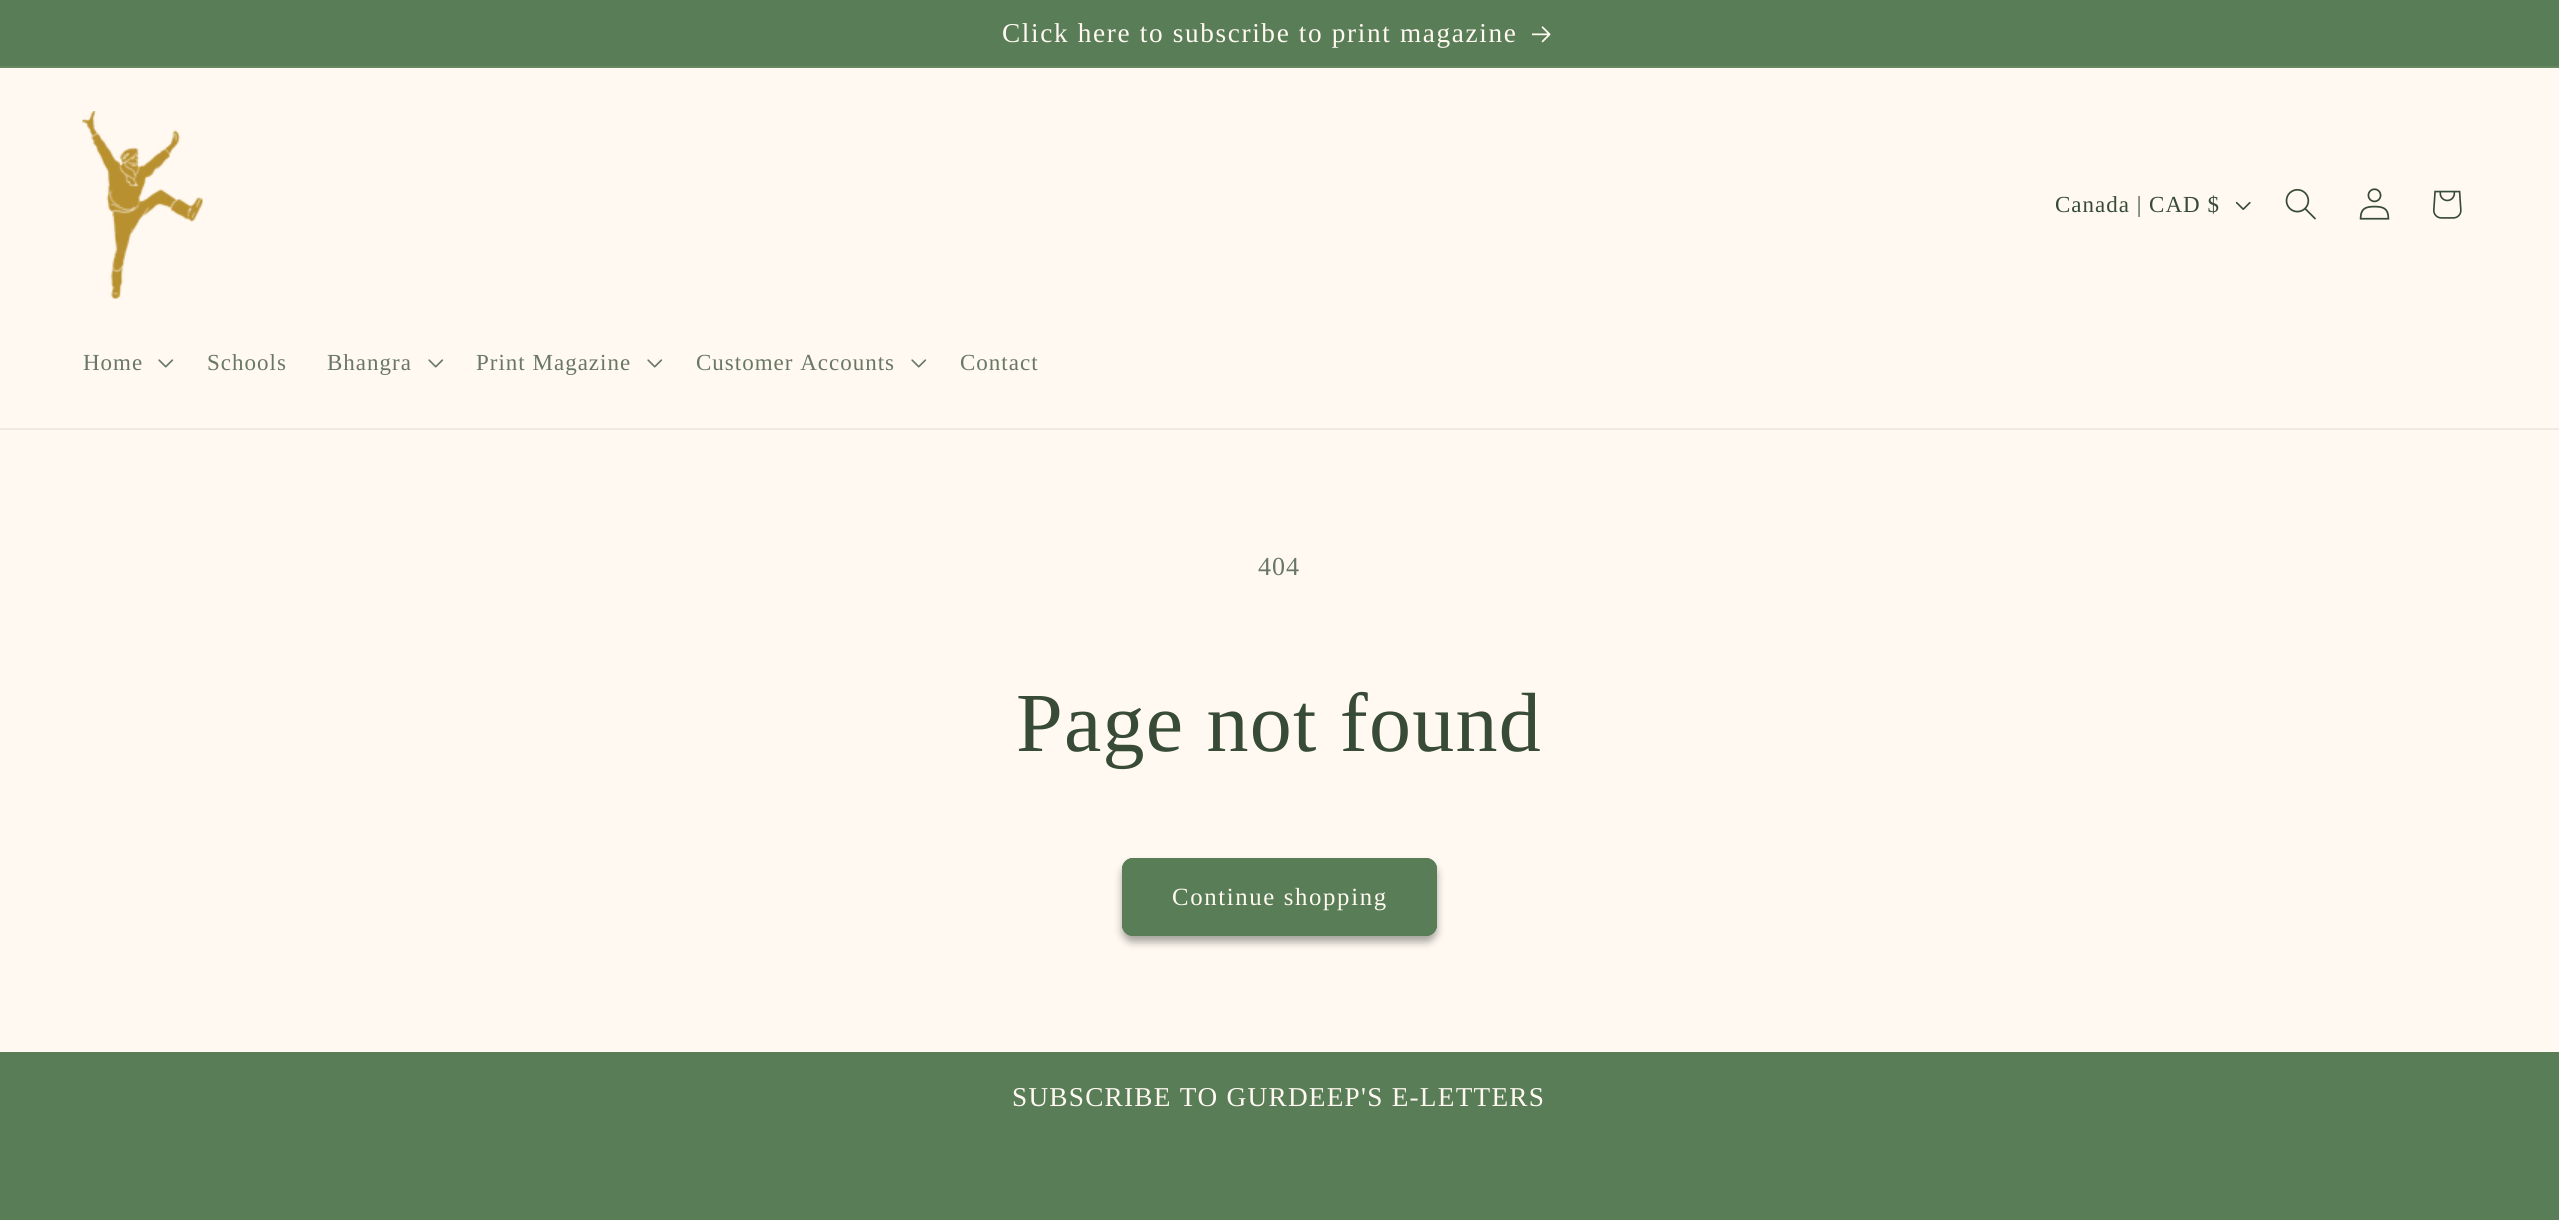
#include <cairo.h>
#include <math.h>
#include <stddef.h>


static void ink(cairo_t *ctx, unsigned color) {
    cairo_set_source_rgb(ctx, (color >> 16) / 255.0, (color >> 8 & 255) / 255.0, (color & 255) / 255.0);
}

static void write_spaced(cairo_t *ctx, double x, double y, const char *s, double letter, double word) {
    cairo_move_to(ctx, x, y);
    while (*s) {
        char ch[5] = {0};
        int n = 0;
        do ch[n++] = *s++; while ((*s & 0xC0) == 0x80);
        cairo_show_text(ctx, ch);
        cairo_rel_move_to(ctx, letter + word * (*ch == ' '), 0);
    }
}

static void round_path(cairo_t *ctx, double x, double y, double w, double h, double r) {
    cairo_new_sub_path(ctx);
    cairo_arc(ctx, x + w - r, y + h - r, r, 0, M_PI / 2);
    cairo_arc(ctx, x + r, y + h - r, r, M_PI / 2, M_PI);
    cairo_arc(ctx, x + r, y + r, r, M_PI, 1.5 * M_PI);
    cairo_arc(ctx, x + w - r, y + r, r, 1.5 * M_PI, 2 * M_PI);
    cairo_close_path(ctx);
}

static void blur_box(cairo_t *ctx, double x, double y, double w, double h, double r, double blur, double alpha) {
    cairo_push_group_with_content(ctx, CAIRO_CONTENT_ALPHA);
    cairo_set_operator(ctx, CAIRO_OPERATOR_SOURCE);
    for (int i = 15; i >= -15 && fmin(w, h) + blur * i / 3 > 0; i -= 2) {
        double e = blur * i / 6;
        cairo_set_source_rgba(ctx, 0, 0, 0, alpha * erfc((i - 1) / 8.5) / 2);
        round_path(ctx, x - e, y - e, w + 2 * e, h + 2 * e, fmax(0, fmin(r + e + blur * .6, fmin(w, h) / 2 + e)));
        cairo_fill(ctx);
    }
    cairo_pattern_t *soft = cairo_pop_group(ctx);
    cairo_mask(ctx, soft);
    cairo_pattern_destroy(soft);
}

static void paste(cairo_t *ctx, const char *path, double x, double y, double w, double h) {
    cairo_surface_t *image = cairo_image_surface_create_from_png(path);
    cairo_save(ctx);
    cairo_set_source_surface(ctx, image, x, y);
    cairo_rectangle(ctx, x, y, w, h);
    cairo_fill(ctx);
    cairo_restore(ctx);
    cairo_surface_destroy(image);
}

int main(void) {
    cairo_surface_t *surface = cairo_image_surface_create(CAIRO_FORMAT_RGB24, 2559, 1220);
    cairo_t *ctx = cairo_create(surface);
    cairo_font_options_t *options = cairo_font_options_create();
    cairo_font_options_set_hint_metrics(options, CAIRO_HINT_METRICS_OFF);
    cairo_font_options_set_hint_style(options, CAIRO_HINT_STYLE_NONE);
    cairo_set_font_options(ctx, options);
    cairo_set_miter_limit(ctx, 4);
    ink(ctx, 0xFFF9F1);
    cairo_paint(ctx);
    ink(ctx, 0x597D56);
    cairo_rectangle(ctx, 0, 0, 2559, 66);
    cairo_fill(ctx);
    ink(ctx, 0x668762);
    cairo_rectangle(ctx, 0, 66, 2559, 2);
    cairo_fill(ctx);
    cairo_select_font_face(ctx, "Liberation Serif", CAIRO_FONT_SLANT_NORMAL, CAIRO_FONT_WEIGHT_NORMAL);
    cairo_set_font_size(ctx, 27.25);
    ink(ctx, 0xFFF9F1);
    write_spaced(ctx, 1002, 42, "Click here to subscribe to print magazine", 1.65, 0);
    paste(ctx, "media/1.png", 1532, 26, 19, 17);
    ink(ctx, 0xEFEBE2);
    cairo_rectangle(ctx, 0, 428, 2559, 2);
    cairo_fill(ctx);
    paste(ctx, "media/2.png", 82, 111, 121, 188);
    cairo_set_font_size(ctx, 23);
    ink(ctx, 0x374B36);
    write_spaced(ctx, 2055, 212, "Canada | CAD $", 1, 0);
    paste(ctx, "media/3.png", 2235, 201, 16, 9);
    paste(ctx, "media/4.png", 2285, 188, 31, 32);
    paste(ctx, "media/5.png", 2359, 188, 31, 32);
    paste(ctx, "media/6.png", 2433, 190, 29, 29);
    ink(ctx, 0x697765);
    write_spaced(ctx, 83, 370, "Home", 1, 0);
    paste(ctx, "media/7.png", 158, 359, 16, 9);
    write_spaced(ctx, 207, 370, "Schools", 1, 0);
    write_spaced(ctx, 327, 370, "Bhangra", 1, 0);
    paste(ctx, "media/7.png", 428, 359, 16, 9);
    write_spaced(ctx, 476, 370, "Print Magazine", 1, 0);
    paste(ctx, "media/7.png", 647, 359, 16, 9);
    write_spaced(ctx, 696, 370, "Customer Accounts", 1, 0);
    paste(ctx, "media/7.png", 911, 359, 16, 9);
    write_spaced(ctx, 960, 370, "Contact", 1, 0);
    cairo_set_font_size(ctx, 26);
    write_spaced(ctx, 1258, 575, "404", 1, 0);
    cairo_set_font_size(ctx, 84);
    ink(ctx, 0x374B36);
    write_spaced(ctx, 1016, 751, "Page not found", 1.25, 0);
    ink(ctx, 0x000000);
    blur_box(ctx, 1122, 864, 315, 78, 11, 4, 0.35);
    ink(ctx, 0x597D56);
    round_path(ctx, 1122, 858, 315, 78, 11);
    cairo_fill(ctx);
    round_path(ctx, 1123, 859, 313, 76, 10);
    cairo_stroke(ctx);
    cairo_set_font_size(ctx, 24.75);
    ink(ctx, 0xFFF9F1);
    write_spaced(ctx, 1172, 905, "Continue shopping", 1.65, 0);
    ink(ctx, 0x597D56);
    cairo_rectangle(ctx, 0, 1052, 2559, 168);
    cairo_fill(ctx);
    cairo_set_font_size(ctx, 27.25);
    ink(ctx, 0xFFF9F1);
    write_spaced(ctx, 1012, 1106, "SUBSCRIBE TO GURDEEP'S E-LETTERS", 1.25, 0);
    cairo_surface_write_to_png(surface, "image.png");
    cairo_font_options_destroy(options);
    cairo_destroy(ctx);
    cairo_surface_destroy(surface);
    return 0;
}
